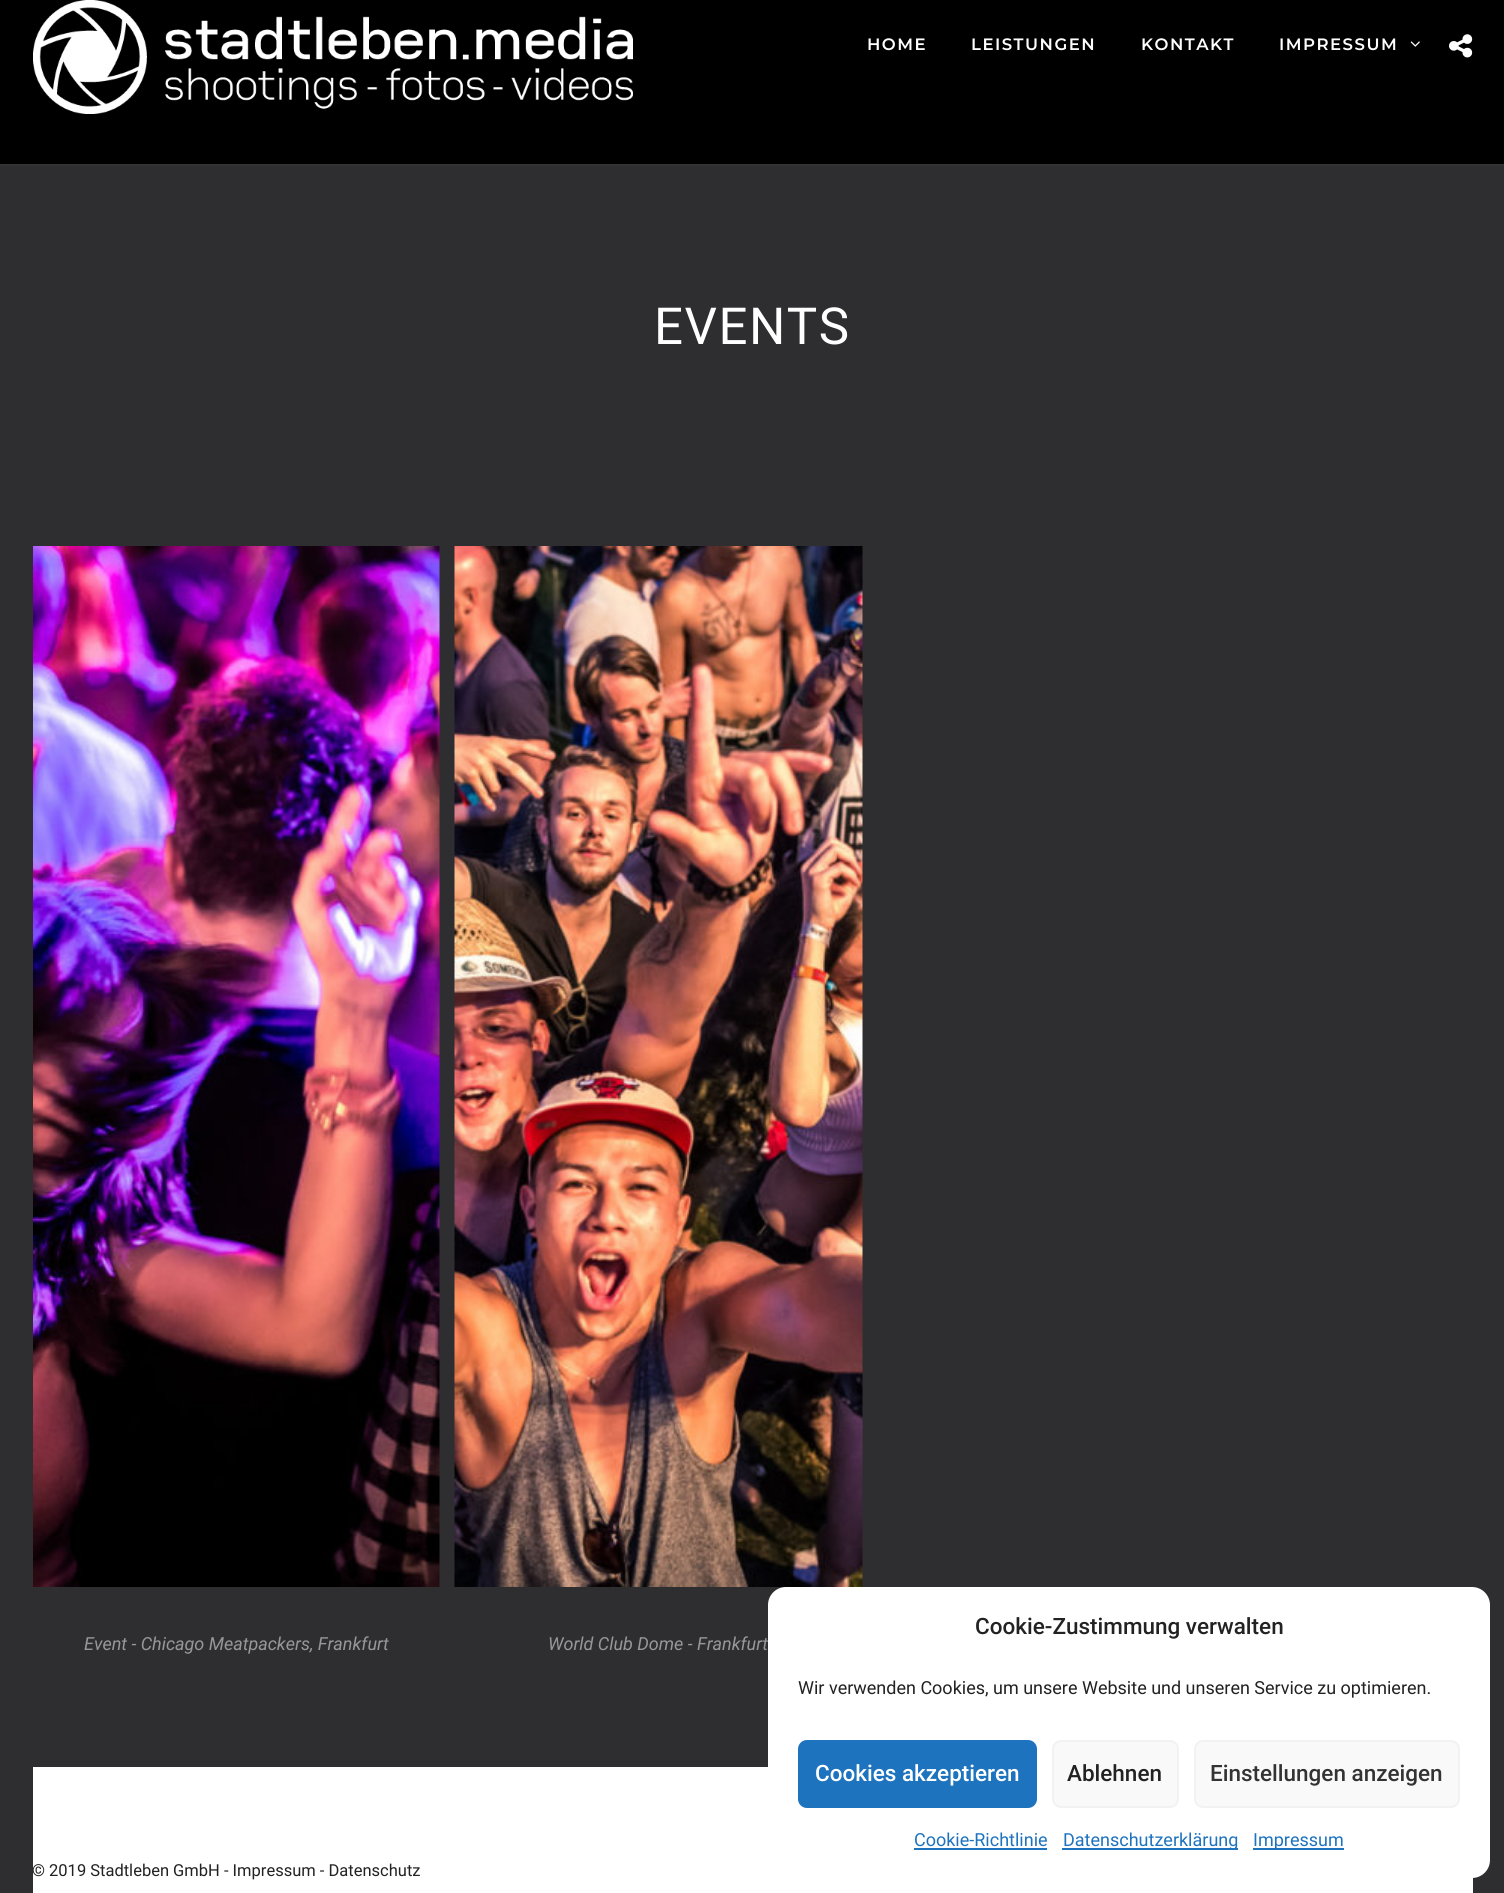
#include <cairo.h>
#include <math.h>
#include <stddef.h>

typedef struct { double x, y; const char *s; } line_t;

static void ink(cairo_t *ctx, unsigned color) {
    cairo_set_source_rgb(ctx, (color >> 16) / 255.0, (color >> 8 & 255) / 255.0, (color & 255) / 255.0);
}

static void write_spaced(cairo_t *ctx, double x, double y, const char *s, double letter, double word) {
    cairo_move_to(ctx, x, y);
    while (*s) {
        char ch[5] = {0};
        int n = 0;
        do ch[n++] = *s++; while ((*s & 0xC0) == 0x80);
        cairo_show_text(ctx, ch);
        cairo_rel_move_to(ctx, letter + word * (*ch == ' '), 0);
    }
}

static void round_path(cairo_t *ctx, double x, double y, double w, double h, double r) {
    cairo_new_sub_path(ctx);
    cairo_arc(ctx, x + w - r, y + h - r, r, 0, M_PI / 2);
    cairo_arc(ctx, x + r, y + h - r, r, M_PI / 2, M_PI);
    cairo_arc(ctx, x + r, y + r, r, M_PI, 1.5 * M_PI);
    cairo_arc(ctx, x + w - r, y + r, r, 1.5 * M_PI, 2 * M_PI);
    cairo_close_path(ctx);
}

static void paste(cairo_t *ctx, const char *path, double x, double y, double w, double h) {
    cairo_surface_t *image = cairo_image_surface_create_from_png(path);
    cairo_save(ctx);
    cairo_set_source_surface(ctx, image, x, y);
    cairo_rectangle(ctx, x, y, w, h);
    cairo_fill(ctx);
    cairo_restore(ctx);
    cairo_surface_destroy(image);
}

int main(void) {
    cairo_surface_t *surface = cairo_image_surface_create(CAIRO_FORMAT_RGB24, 1504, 1893);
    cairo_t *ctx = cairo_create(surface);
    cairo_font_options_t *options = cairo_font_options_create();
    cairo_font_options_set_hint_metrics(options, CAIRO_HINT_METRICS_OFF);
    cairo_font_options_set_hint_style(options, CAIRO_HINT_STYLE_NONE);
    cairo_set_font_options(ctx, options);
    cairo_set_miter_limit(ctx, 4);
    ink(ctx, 0x2E2E30);
    cairo_paint(ctx);
    ink(ctx, 0x000000);
    cairo_rectangle(ctx, 0, 0, 1504, 164);
    cairo_fill(ctx);
    ink(ctx, 0x333333);
    cairo_rectangle(ctx, 0, 164, 1504, 2);
    cairo_fill(ctx);
    paste(ctx, "media/1.png", 33, 0, 600, 114);
    cairo_select_font_face(ctx, "Montserrat SemiBold", CAIRO_FONT_SLANT_NORMAL, CAIRO_FONT_WEIGHT_NORMAL);
    cairo_set_font_size(ctx, 16.5);
    ink(ctx, 0xFFFFFF);
    {
        static const line_t items[] = {
            {867, 50, "HOME"},
            {971, 50, "LEISTUNGEN"},
            {1141, 50, "KONTAKT"},
            {1279, 50, "IMPRESSUM"},
        };
        for (size_t i = 0; i < sizeof items / sizeof *items; i++) {
            write_spaced(ctx, items[i].x, items[i].y, items[i].s, 1.5, 0);
        }
    }
    paste(ctx, "media/2.png", 1410, 41, 10, 6);
    paste(ctx, "media/3.png", 1449, 34, 24, 24);
    cairo_select_font_face(ctx, "Roboto", CAIRO_FONT_SLANT_NORMAL, CAIRO_FONT_WEIGHT_NORMAL);
    cairo_set_font_size(ctx, 51);
    write_spaced(ctx, 654, 344, "EVENTS", 1.5, 0);
    paste(ctx, "media/4.png", 33, 546, 407, 1041);
    cairo_select_font_face(ctx, "Roboto", CAIRO_FONT_SLANT_ITALIC, CAIRO_FONT_WEIGHT_NORMAL);
    cairo_set_font_size(ctx, 18);
    ink(ctx, 0x979798);
    cairo_move_to(ctx, 84, 1650);
    cairo_show_text(ctx, "Event - Chicago Meatpackers, Frankfurt");
    paste(ctx, "media/5.png", 454, 546, 409, 1041);
    cairo_move_to(ctx, 548, 1650);
    cairo_show_text(ctx, "World Club Dome - Frankfurt");
    ink(ctx, 0xFFFFFF);
    cairo_rectangle(ctx, 33, 1767, 1440, 126);
    cairo_fill(ctx);
    cairo_select_font_face(ctx, "Roboto", CAIRO_FONT_SLANT_NORMAL, CAIRO_FONT_WEIGHT_NORMAL);
    cairo_set_font_size(ctx, 16.5);
    ink(ctx, 0x222222);
    cairo_move_to(ctx, 32, 1876);
    cairo_show_text(ctx, "© 2019 Stadtleben GmbH - Impressum - Datenschutz");
    ink(ctx, 0xFFFFFF);
    round_path(ctx, 768, 1587, 722, 291, 18);
    cairo_fill(ctx);
    cairo_select_font_face(ctx, "Roboto Medium", CAIRO_FONT_SLANT_NORMAL, CAIRO_FONT_WEIGHT_NORMAL);
    cairo_set_font_size(ctx, 22.5);
    ink(ctx, 0x222222);
    cairo_move_to(ctx, 975, 1634);
    cairo_show_text(ctx, "Cookie-Zustimmung verwalten");
    cairo_select_font_face(ctx, "Roboto", CAIRO_FONT_SLANT_NORMAL, CAIRO_FONT_WEIGHT_NORMAL);
    cairo_set_font_size(ctx, 18);
    cairo_move_to(ctx, 798, 1694);
    cairo_show_text(ctx, "Wir verwenden Cookies, um unsere Website und unseren Service zu optimieren.");
    ink(ctx, 0x1E73BE);
    round_path(ctx, 799, 1741, 237, 66, 8);
    cairo_fill_preserve(ctx);
    cairo_stroke(ctx);
    cairo_select_font_face(ctx, "Roboto Medium", CAIRO_FONT_SLANT_NORMAL, CAIRO_FONT_WEIGHT_NORMAL);
    cairo_set_font_size(ctx, 22.5);
    ink(ctx, 0xFFFFFF);
    cairo_move_to(ctx, 815, 1781);
    cairo_show_text(ctx, "Cookies akzeptieren");
    ink(ctx, 0xF9F9F9);
    round_path(ctx, 1053, 1741, 125, 66, 8);
    cairo_fill_preserve(ctx);
    ink(ctx, 0xF2F2F2);
    cairo_stroke(ctx);
    ink(ctx, 0x222222);
    cairo_move_to(ctx, 1067, 1781);
    cairo_show_text(ctx, "Ablehnen");
    ink(ctx, 0xF9F9F9);
    round_path(ctx, 1195, 1741, 264, 66, 8);
    cairo_fill_preserve(ctx);
    ink(ctx, 0xF2F2F2);
    cairo_stroke(ctx);
    ink(ctx, 0x333333);
    cairo_move_to(ctx, 1210, 1781);
    cairo_show_text(ctx, "Einstellungen anzeigen");
    cairo_select_font_face(ctx, "Roboto", CAIRO_FONT_SLANT_NORMAL, CAIRO_FONT_WEIGHT_NORMAL);
    cairo_set_font_size(ctx, 18);
    ink(ctx, 0x1E73BE);
    cairo_move_to(ctx, 914, 1846);
    cairo_show_text(ctx, "Cookie-Richtlinie");
    cairo_rectangle(ctx, 914, 1848, 133, 2);
    cairo_fill(ctx);
    cairo_rectangle(ctx, 1062, 1848, 176, 2);
    cairo_fill(ctx);
    cairo_move_to(ctx, 1063, 1846);
    cairo_show_text(ctx, "Datenschutzerklärung");
    cairo_rectangle(ctx, 1253, 1848, 91, 2);
    cairo_fill(ctx);
    cairo_move_to(ctx, 1253, 1846);
    cairo_show_text(ctx, "Impressum");
    cairo_surface_write_to_png(surface, "image.png");
    cairo_font_options_destroy(options);
    cairo_destroy(ctx);
    cairo_surface_destroy(surface);
    return 0;
}
